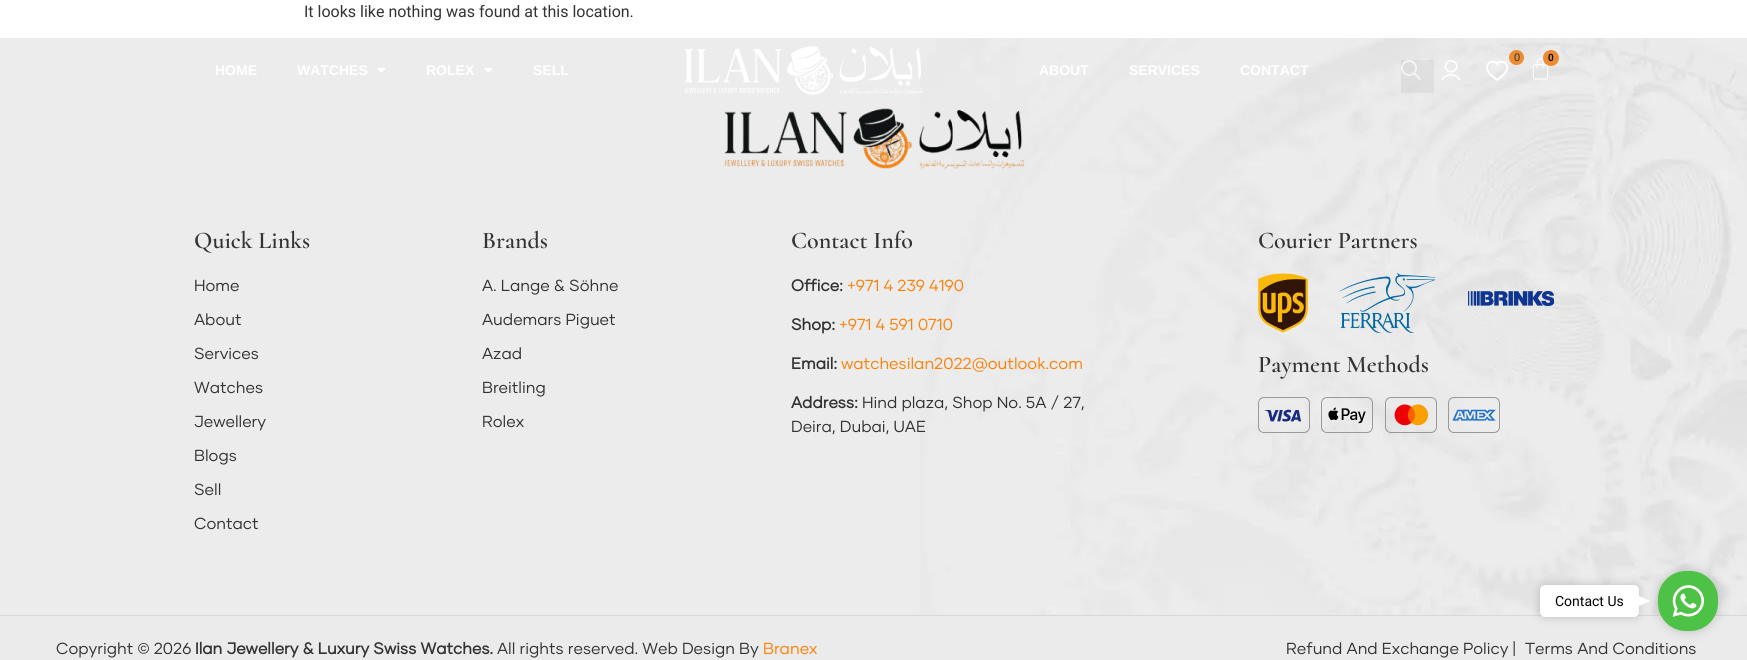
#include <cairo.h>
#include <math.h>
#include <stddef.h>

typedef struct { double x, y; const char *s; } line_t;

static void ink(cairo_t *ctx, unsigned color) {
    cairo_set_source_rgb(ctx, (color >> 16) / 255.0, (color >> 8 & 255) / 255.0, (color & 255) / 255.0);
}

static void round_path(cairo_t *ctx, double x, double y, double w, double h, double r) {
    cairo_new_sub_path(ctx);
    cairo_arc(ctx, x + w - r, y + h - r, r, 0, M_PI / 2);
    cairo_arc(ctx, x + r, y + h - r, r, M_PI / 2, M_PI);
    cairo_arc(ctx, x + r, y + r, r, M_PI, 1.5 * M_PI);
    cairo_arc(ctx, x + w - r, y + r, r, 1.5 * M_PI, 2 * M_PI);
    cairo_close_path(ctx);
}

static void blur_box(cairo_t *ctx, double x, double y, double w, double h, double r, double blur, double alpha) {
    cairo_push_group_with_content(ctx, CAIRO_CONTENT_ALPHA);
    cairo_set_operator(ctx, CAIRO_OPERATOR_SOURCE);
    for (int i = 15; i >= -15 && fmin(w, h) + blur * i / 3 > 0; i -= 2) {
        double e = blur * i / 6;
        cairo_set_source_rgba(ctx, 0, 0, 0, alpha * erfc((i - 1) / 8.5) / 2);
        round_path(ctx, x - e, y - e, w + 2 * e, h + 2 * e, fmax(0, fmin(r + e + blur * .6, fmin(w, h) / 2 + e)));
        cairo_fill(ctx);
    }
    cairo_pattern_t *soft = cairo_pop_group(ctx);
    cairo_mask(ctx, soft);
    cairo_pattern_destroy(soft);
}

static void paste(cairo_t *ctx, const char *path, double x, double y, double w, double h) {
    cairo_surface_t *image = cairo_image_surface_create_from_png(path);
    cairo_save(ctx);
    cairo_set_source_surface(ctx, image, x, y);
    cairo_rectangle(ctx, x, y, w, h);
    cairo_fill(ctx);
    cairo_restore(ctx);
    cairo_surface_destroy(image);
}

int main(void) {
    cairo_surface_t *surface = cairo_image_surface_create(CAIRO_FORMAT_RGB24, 1747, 660);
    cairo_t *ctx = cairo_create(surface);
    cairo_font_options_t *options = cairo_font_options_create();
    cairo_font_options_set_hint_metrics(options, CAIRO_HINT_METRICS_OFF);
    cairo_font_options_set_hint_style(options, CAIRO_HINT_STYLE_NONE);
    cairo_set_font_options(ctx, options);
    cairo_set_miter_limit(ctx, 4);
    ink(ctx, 0xFFFFFF);
    cairo_paint(ctx);
    cairo_select_font_face(ctx, "Roboto", CAIRO_FONT_SLANT_NORMAL, CAIRO_FONT_WEIGHT_NORMAL);
    cairo_set_font_size(ctx, 16);
    ink(ctx, 0x333333);
    cairo_move_to(ctx, 304, 17);
    cairo_show_text(ctx, "It looks like nothing was found at this location.");
    paste(ctx, "media/7.png", 0, 38, 1747, 577);
    ink(ctx, 0xEB8C31);
    cairo_arc(ctx, 1516.5, 57.5, 7.5, 0, 2 * M_PI);
    cairo_fill(ctx);
    cairo_select_font_face(ctx, "Liberation Sans", CAIRO_FONT_SLANT_NORMAL, CAIRO_FONT_WEIGHT_NORMAL);
    cairo_set_font_size(ctx, 11);
    ink(ctx, 0x333333);
    cairo_move_to(ctx, 1514, 61);
    cairo_show_text(ctx, "0");
    paste(ctx, "media/1.png", 1486, 61, 23, 20);
    paste(ctx, "media/2.png", 1441, 60, 20, 20);
    paste(ctx, "media/3.png", 1532, 58, 17, 22);
    ink(ctx, 0xEB8C31);
    cairo_arc(ctx, 1551, 58, 8, 0, 2 * M_PI);
    cairo_fill(ctx);
    cairo_select_font_face(ctx, "Roboto SemiBold", CAIRO_FONT_SLANT_NORMAL, CAIRO_FONT_WEIGHT_NORMAL);
    cairo_set_font_size(ctx, 10);
    ink(ctx, 0x000000);
    cairo_move_to(ctx, 1548, 61);
    cairo_show_text(ctx, "0");
    paste(ctx, "media/4.png", 1401, 60, 20, 20);
    cairo_set_source_rgba(ctx, 0, 0, 0, 0.05);
    cairo_rectangle(ctx, 1401, 60, 33, 33);
    cairo_fill(ctx);
    cairo_select_font_face(ctx, "Liberation Sans", CAIRO_FONT_SLANT_NORMAL, CAIRO_FONT_WEIGHT_BOLD);
    cairo_set_font_size(ctx, 14);
    ink(ctx, 0xFFFFFF);
    cairo_move_to(ctx, 215, 75);
    cairo_show_text(ctx, "HOME");
    cairo_move_to(ctx, 297, 75);
    cairo_show_text(ctx, "WATCHES");
    paste(ctx, "media/5.png", 377, 68, 9, 5);
    cairo_move_to(ctx, 426, 75);
    cairo_show_text(ctx, "ROLEX");
    paste(ctx, "media/5.png", 484, 68, 9, 5);
    cairo_move_to(ctx, 533, 75);
    cairo_show_text(ctx, "SELL");
    paste(ctx, "media/6.png", 684, 46, 239, 49);
    {
        static const line_t items[] = {
            {1039, 75, "ABOUT"},
            {1129, 75, "SERVICES"},
            {1240, 75, "CONTACT"},
        };
        for (size_t i = 0; i < sizeof items / sizeof *items; i++) {
            cairo_move_to(ctx, items[i].x, items[i].y);
            cairo_show_text(ctx, items[i].s);
        }
    }
    paste(ctx, "media/8.png", 724, 108, 300, 61);
    cairo_select_font_face(ctx, "Cormorant SemiBold", CAIRO_FONT_SLANT_NORMAL, CAIRO_FONT_WEIGHT_NORMAL);
    cairo_set_font_size(ctx, 24);
    ink(ctx, 0x333333);
    cairo_move_to(ctx, 194, 248);
    cairo_show_text(ctx, "Quick Links");
    cairo_select_font_face(ctx, "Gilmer", CAIRO_FONT_SLANT_NORMAL, CAIRO_FONT_WEIGHT_NORMAL);
    cairo_set_font_size(ctx, 16);
    {
        static const line_t items[] = {
            {194, 291, "Home"},
            {194, 325, "About"},
            {194, 359, "Services"},
            {194, 393, "Watches"},
            {194, 427, "Jewellery"},
            {194, 461, "Blogs"},
            {194, 495, "Sell"},
            {194, 529, "Contact"},
        };
        for (size_t i = 0; i < sizeof items / sizeof *items; i++) {
            cairo_move_to(ctx, items[i].x, items[i].y);
            cairo_show_text(ctx, items[i].s);
        }
    }
    cairo_select_font_face(ctx, "Cormorant SemiBold", CAIRO_FONT_SLANT_NORMAL, CAIRO_FONT_WEIGHT_NORMAL);
    cairo_set_font_size(ctx, 24);
    cairo_move_to(ctx, 482, 248);
    cairo_show_text(ctx, "Brands");
    cairo_select_font_face(ctx, "Gilmer", CAIRO_FONT_SLANT_NORMAL, CAIRO_FONT_WEIGHT_NORMAL);
    cairo_set_font_size(ctx, 16);
    {
        static const line_t items[] = {
            {482, 291, "A. Lange & Söhne"},
            {482, 325, "Audemars Piguet"},
            {482, 359, "Azad"},
            {482, 393, "Breitling"},
            {482, 427, "Rolex"},
        };
        for (size_t i = 0; i < sizeof items / sizeof *items; i++) {
            cairo_move_to(ctx, items[i].x, items[i].y);
            cairo_show_text(ctx, items[i].s);
        }
    }
    cairo_select_font_face(ctx, "Cormorant SemiBold", CAIRO_FONT_SLANT_NORMAL, CAIRO_FONT_WEIGHT_NORMAL);
    cairo_set_font_size(ctx, 24);
    cairo_move_to(ctx, 791, 248);
    cairo_show_text(ctx, "Contact Info");
    cairo_select_font_face(ctx, "Gilmer", CAIRO_FONT_SLANT_NORMAL, CAIRO_FONT_WEIGHT_BOLD);
    cairo_set_font_size(ctx, 16);
    cairo_move_to(ctx, 791, 291);
    cairo_show_text(ctx, "Office:");
    cairo_select_font_face(ctx, "Gilmer", CAIRO_FONT_SLANT_NORMAL, CAIRO_FONT_WEIGHT_NORMAL);
    ink(ctx, 0xFE8006);
    cairo_move_to(ctx, 847, 291);
    cairo_show_text(ctx, "+971 4 239 4190");
    cairo_select_font_face(ctx, "Gilmer", CAIRO_FONT_SLANT_NORMAL, CAIRO_FONT_WEIGHT_BOLD);
    ink(ctx, 0x333333);
    cairo_move_to(ctx, 791, 330);
    cairo_show_text(ctx, "Shop:");
    cairo_select_font_face(ctx, "Gilmer", CAIRO_FONT_SLANT_NORMAL, CAIRO_FONT_WEIGHT_NORMAL);
    ink(ctx, 0xFE8006);
    cairo_move_to(ctx, 839, 330);
    cairo_show_text(ctx, "+971 4 591 0710");
    cairo_select_font_face(ctx, "Gilmer", CAIRO_FONT_SLANT_NORMAL, CAIRO_FONT_WEIGHT_BOLD);
    ink(ctx, 0x333333);
    cairo_move_to(ctx, 791, 369);
    cairo_show_text(ctx, "Email:");
    cairo_select_font_face(ctx, "Gilmer", CAIRO_FONT_SLANT_NORMAL, CAIRO_FONT_WEIGHT_NORMAL);
    ink(ctx, 0xFE8006);
    cairo_move_to(ctx, 841, 369);
    cairo_show_text(ctx, "watchesilan2022@outlook.com");
    cairo_select_font_face(ctx, "Gilmer", CAIRO_FONT_SLANT_NORMAL, CAIRO_FONT_WEIGHT_BOLD);
    ink(ctx, 0x333333);
    cairo_move_to(ctx, 791, 408);
    cairo_show_text(ctx, "Address:");
    cairo_select_font_face(ctx, "Gilmer", CAIRO_FONT_SLANT_NORMAL, CAIRO_FONT_WEIGHT_NORMAL);
    cairo_move_to(ctx, 862, 408);
    cairo_show_text(ctx, "Hind plaza, Shop No. 5A / 27,");
    cairo_move_to(ctx, 791, 432);
    cairo_show_text(ctx, "Deira, Dubai, UAE");
    cairo_select_font_face(ctx, "Cormorant SemiBold", CAIRO_FONT_SLANT_NORMAL, CAIRO_FONT_WEIGHT_NORMAL);
    cairo_set_font_size(ctx, 24);
    cairo_move_to(ctx, 1258, 248);
    cairo_show_text(ctx, "Courier Partners");
    paste(ctx, "media/9.png", 1258, 273, 296, 60);
    cairo_move_to(ctx, 1258, 372);
    cairo_show_text(ctx, "Payment Methods");
    paste(ctx, "media/10.png", 1258, 397, 242, 36);
    ink(ctx, 0xEBEBEB);
    cairo_rectangle(ctx, 0, 616, 1747, 44);
    cairo_fill(ctx);
    ink(ctx, 0xD8D8D8);
    cairo_rectangle(ctx, 0, 615, 1747, 1);
    cairo_fill(ctx);
    cairo_select_font_face(ctx, "Gilmer", CAIRO_FONT_SLANT_NORMAL, CAIRO_FONT_WEIGHT_NORMAL);
    cairo_set_font_size(ctx, 16);
    ink(ctx, 0x333333);
    cairo_move_to(ctx, 56, 654);
    cairo_show_text(ctx, "Copyright © 2026");
    cairo_select_font_face(ctx, "Gilmer", CAIRO_FONT_SLANT_NORMAL, CAIRO_FONT_WEIGHT_BOLD);
    cairo_move_to(ctx, 195, 654);
    cairo_show_text(ctx, "Ilan Jewellery & Luxury Swiss Watches.");
    cairo_select_font_face(ctx, "Gilmer", CAIRO_FONT_SLANT_NORMAL, CAIRO_FONT_WEIGHT_NORMAL);
    cairo_move_to(ctx, 497, 654);
    cairo_show_text(ctx, "All rights reserved. Web Design By");
    ink(ctx, 0xFE8006);
    cairo_move_to(ctx, 763, 654);
    cairo_show_text(ctx, "Branex");
    ink(ctx, 0x333333);
    cairo_move_to(ctx, 1286, 654);
    cairo_show_text(ctx, "Refund And Exchange Policy |");
    cairo_move_to(ctx, 1525, 654);
    cairo_show_text(ctx, "Terms And Conditions");
    ink(ctx, 0x000000);
    blur_box(ctx, 1540, 585, 99, 32, 5, 5, 0.2);
    ink(ctx, 0xFFFFFF);
    round_path(ctx, 1540, 585, 99, 32, 5);
    cairo_fill(ctx);
    cairo_select_font_face(ctx, "Roboto", CAIRO_FONT_SLANT_NORMAL, CAIRO_FONT_WEIGHT_NORMAL);
    cairo_set_font_size(ctx, 14);
    ink(ctx, 0x000000);
    cairo_move_to(ctx, 1555, 606);
    cairo_show_text(ctx, "Contact Us");
    ink(ctx, 0x000000);
    blur_box(ctx, 1658, 571, 60, 60, 28, 6, 0.2);
    ink(ctx, 0xFFFFFF);
    cairo_new_path(ctx);
    cairo_move_to(ctx, 1639, 606);
    cairo_line_to(ctx, 1639, 596);
    cairo_line_to(ctx, 1650, 601);
    cairo_close_path(ctx);
    cairo_fill(ctx);
    ink(ctx, 0x4DC247);
    round_path(ctx, 1658, 571, 60, 60, 28);
    cairo_fill(ctx);
    paste(ctx, "media/11.png", 1672, 585, 32, 32);
    cairo_surface_write_to_png(surface, "image.png");
    cairo_font_options_destroy(options);
    cairo_destroy(ctx);
    cairo_surface_destroy(surface);
    return 0;
}
